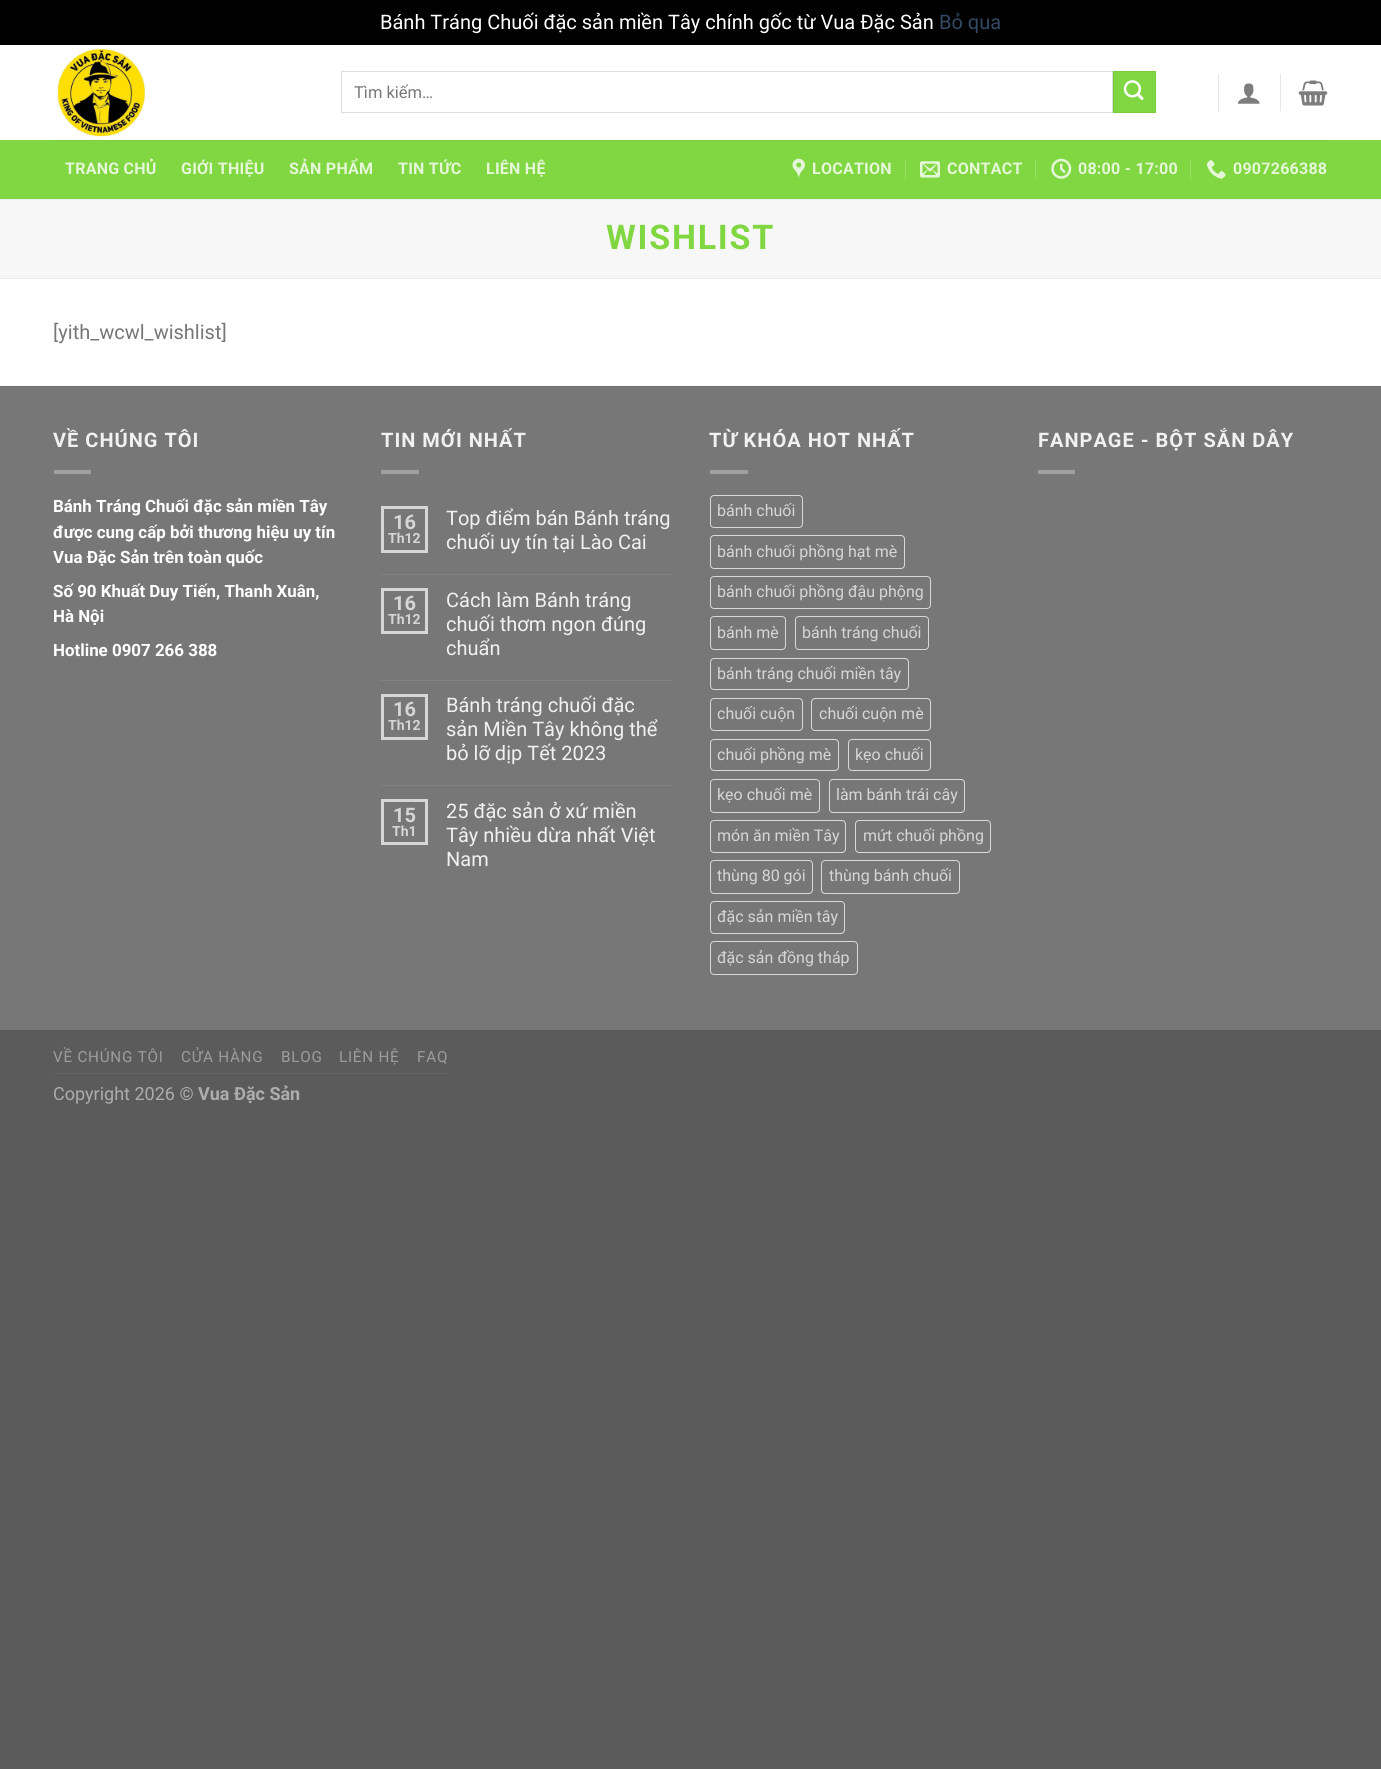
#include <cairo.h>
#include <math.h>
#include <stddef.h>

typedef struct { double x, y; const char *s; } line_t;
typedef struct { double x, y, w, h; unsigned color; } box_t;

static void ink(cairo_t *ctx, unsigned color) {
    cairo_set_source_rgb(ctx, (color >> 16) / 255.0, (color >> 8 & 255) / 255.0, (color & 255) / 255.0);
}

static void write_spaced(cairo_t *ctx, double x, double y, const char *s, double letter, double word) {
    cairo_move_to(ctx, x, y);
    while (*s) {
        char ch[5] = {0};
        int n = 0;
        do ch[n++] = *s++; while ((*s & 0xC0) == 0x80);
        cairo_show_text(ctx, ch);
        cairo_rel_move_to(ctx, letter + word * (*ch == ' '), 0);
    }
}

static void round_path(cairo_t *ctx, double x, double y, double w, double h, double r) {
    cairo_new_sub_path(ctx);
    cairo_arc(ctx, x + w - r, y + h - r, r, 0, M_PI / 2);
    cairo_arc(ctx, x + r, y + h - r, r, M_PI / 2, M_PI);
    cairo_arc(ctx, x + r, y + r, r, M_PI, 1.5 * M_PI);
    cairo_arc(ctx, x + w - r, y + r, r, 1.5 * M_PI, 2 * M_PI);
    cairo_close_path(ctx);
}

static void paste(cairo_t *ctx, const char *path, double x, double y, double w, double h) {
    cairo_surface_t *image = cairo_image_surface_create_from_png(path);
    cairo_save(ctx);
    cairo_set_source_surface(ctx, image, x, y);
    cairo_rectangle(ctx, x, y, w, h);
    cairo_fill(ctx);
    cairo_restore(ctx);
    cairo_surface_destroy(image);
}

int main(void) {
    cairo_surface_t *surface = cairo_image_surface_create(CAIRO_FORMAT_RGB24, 1381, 1769);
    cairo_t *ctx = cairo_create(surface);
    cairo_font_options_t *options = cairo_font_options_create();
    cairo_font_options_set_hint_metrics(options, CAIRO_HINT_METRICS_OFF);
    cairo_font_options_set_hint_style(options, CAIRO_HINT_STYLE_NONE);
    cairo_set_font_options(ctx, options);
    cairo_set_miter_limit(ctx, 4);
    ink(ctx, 0x5B5B5B);
    cairo_paint(ctx);
    ink(ctx, 0x000000);
    cairo_rectangle(ctx, 0, 0, 1381, 45);
    cairo_fill(ctx);
    cairo_select_font_face(ctx, "Roboto", CAIRO_FONT_SLANT_NORMAL, CAIRO_FONT_WEIGHT_NORMAL);
    cairo_set_font_size(ctx, 20);
    ink(ctx, 0xFFFFFF);
    cairo_move_to(ctx, 380, 29);
    cairo_show_text(ctx, "Bánh Tráng Chuối đặc sản miền Tây chính gốc từ Vua Đặc Sản");
    ink(ctx, 0x334862);
    cairo_move_to(ctx, 939, 29);
    cairo_show_text(ctx, "Bỏ qua");
    ink(ctx, 0xFFFFFF);
    cairo_rectangle(ctx, 0, 45, 1381, 341);
    cairo_fill(ctx);
    paste(ctx, "media/1.png", 57, 48, 89, 89);
    cairo_rectangle(ctx, 341.5, 71.5, 771, 41);
    ink(ctx, 0xDDDDDD);
    cairo_set_line_width(ctx, 1);
    cairo_stroke(ctx);
    cairo_set_font_size(ctx, 16.5);
    ink(ctx, 0x777777);
    cairo_move_to(ctx, 354, 98);
    cairo_show_text(ctx, "Tìm kiếm…");
    ink(ctx, 0x81D742);
    cairo_rectangle(ctx, 1113.5, 71.5, 42, 41);
    cairo_fill_preserve(ctx);
    ink(ctx, 0x7BCC3F);
    cairo_stroke(ctx);
    paste(ctx, "media/2.png", 1123, 80, 21, 20);
    ink(ctx, 0xE6E6E6);
    cairo_rectangle(ctx, 1218, 74, 1, 37);
    cairo_fill(ctx);
    paste(ctx, "media/3.png", 1237, 83, 23, 21);
    cairo_rectangle(ctx, 1280, 74, 1, 37);
    cairo_fill(ctx);
    paste(ctx, "media/4.png", 1298, 80, 30, 26);
    ink(ctx, 0x81D742);
    cairo_rectangle(ctx, 0, 140, 1381, 59);
    cairo_fill(ctx);
    ink(ctx, 0x80CD47);
    cairo_rectangle(ctx, 54, 140, 1275, 1);
    cairo_fill(ctx);
    cairo_select_font_face(ctx, "Roboto", CAIRO_FONT_SLANT_NORMAL, CAIRO_FONT_WEIGHT_BOLD);
    cairo_set_font_size(ctx, 16);
    ink(ctx, 0xE6F7D9);
    {
        static const line_t items[] = {
            {65, 174, "TRANG CHỦ"},
            {181, 174, "GIỚI THIỆU"},
            {289, 174, "SẢN PHẨM"},
            {398, 174, "TIN TỨC"},
            {486, 174, "LIÊN HỆ"},
        };
        for (size_t i = 0; i < sizeof items / sizeof *items; i++) {
            write_spaced(ctx, items[i].x, items[i].y, items[i].s, 0.25, 0);
        }
    }
    paste(ctx, "media/5.png", 792, 158, 13, 21);
    write_spaced(ctx, 812, 174, "LOCATION", 0.25, 0);
    ink(ctx, 0x9ADF68);
    cairo_rectangle(ctx, 905, 160, 1, 19);
    cairo_fill(ctx);
    paste(ctx, "media/6.png", 920, 161, 20, 17);
    ink(ctx, 0xE6F7D9);
    write_spaced(ctx, 947, 174, "CONTACT", 0.25, 0);
    ink(ctx, 0x9ADF68);
    cairo_rectangle(ctx, 1035, 160, 1, 19);
    cairo_fill(ctx);
    paste(ctx, "media/7.png", 1051, 158, 21, 21);
    ink(ctx, 0xE6F7D9);
    write_spaced(ctx, 1078, 174, "08:00 - 17:00", 0.25, 0);
    ink(ctx, 0x9ADF68);
    cairo_rectangle(ctx, 1190, 160, 1, 19);
    cairo_fill(ctx);
    paste(ctx, "media/8.png", 1206, 160, 20, 19);
    ink(ctx, 0xE6F7D9);
    write_spaced(ctx, 1233, 174, "0907266388", 0.25, 0);
    {
        static const box_t items[] = {
            {0, 200, 1381, 78, 0xF7F7F7},
            {0, 199, 1381, 1, 0xECECEC},
            {0, 278, 1381, 1, 0xECECEC},
        };
        for (size_t i = 0; i < sizeof items / sizeof *items; i++) {
            ink(ctx, items[i].color);
            cairo_rectangle(ctx, items[i].x, items[i].y, items[i].w, items[i].h);
            cairo_fill(ctx);
        }
    }
    cairo_set_font_size(ctx, 34);
    ink(ctx, 0x81D742);
    write_spaced(ctx, 606, 249, "WISHLIST", 1.75, 0);
    cairo_select_font_face(ctx, "Roboto", CAIRO_FONT_SLANT_NORMAL, CAIRO_FONT_WEIGHT_NORMAL);
    cairo_set_font_size(ctx, 20);
    ink(ctx, 0x777777);
    cairo_move_to(ctx, 53, 339);
    cairo_show_text(ctx, "[yith_wcwl_wishlist]");
    cairo_rectangle(ctx, 0, 387, 1381, 643);
    cairo_fill(ctx);
    ink(ctx, 0x717171);
    cairo_rectangle(ctx, 0, 386, 1381, 1);
    cairo_fill(ctx);
    cairo_select_font_face(ctx, "Roboto", CAIRO_FONT_SLANT_NORMAL, CAIRO_FONT_WEIGHT_BOLD);
    ink(ctx, 0xF1F1F1);
    write_spaced(ctx, 53, 447, "VỀ CHÚNG TÔI", 1, 0);
    ink(ctx, 0xA0A0A0);
    cairo_rectangle(ctx, 54, 470, 37, 4);
    cairo_fill(ctx);
    cairo_set_font_size(ctx, 16.9);
    ink(ctx, 0xFFFFFF);
    {
        static const line_t items[] = {
            {53, 512, "Bánh Tráng Chuối đặc sản miền Tây"},
            {53, 538, "được cung cấp bởi thương hiệu uy tín"},
            {53, 563, "Vua Đặc Sản trên toàn quốc"},
            {53, 597, "Số 90 Khuất Duy Tiến, Thanh Xuân,"},
            {53, 622, "Hà Nội"},
            {53, 656, "Hotline 0907 266 388"},
        };
        for (size_t i = 0; i < sizeof items / sizeof *items; i++) {
            cairo_move_to(ctx, items[i].x, items[i].y);
            cairo_show_text(ctx, items[i].s);
        }
    }
    cairo_set_font_size(ctx, 20);
    ink(ctx, 0xF1F1F1);
    write_spaced(ctx, 381, 447, "TIN MỚI NHẤT", 1, 0);
    ink(ctx, 0xA0A0A0);
    cairo_rectangle(ctx, 381, 470, 38, 4);
    cairo_fill(ctx);
    cairo_rectangle(ctx, 382.5, 507.5, 44, 44);
    ink(ctx, 0xD6D6D6);
    cairo_set_line_width(ctx, 3);
    cairo_stroke(ctx);
    cairo_move_to(ctx, 393, 529);
    cairo_show_text(ctx, "16");
    cairo_set_font_size(ctx, 14);
    cairo_move_to(ctx, 388, 543);
    cairo_show_text(ctx, "Th12");
    cairo_select_font_face(ctx, "Roboto", CAIRO_FONT_SLANT_NORMAL, CAIRO_FONT_WEIGHT_NORMAL);
    cairo_set_font_size(ctx, 20);
    ink(ctx, 0xF1F1F1);
    cairo_move_to(ctx, 446, 525);
    cairo_show_text(ctx, "Top điểm bán Bánh tráng");
    cairo_move_to(ctx, 446, 549);
    cairo_show_text(ctx, "chuối uy tín tại Lào Cai");
    ink(ctx, 0x828282);
    cairo_rectangle(ctx, 381, 574, 292, 1);
    cairo_fill(ctx);
    cairo_rectangle(ctx, 382.5, 589.5, 44, 43);
    ink(ctx, 0xD6D6D6);
    cairo_stroke(ctx);
    cairo_select_font_face(ctx, "Roboto", CAIRO_FONT_SLANT_NORMAL, CAIRO_FONT_WEIGHT_BOLD);
    cairo_move_to(ctx, 393, 610);
    cairo_show_text(ctx, "16");
    cairo_set_font_size(ctx, 14);
    cairo_move_to(ctx, 388, 624);
    cairo_show_text(ctx, "Th12");
    cairo_select_font_face(ctx, "Roboto", CAIRO_FONT_SLANT_NORMAL, CAIRO_FONT_WEIGHT_NORMAL);
    cairo_set_font_size(ctx, 20);
    ink(ctx, 0xF1F1F1);
    {
        static const line_t items[] = {
            {446, 607, "Cách làm Bánh tráng"},
            {446, 631, "chuối thơm ngon đúng"},
            {446, 655, "chuẩn"},
        };
        for (size_t i = 0; i < sizeof items / sizeof *items; i++) {
            cairo_move_to(ctx, items[i].x, items[i].y);
            cairo_show_text(ctx, items[i].s);
        }
    }
    ink(ctx, 0x828282);
    cairo_rectangle(ctx, 381, 680, 292, 1);
    cairo_fill(ctx);
    cairo_rectangle(ctx, 382.5, 695.5, 44, 43);
    ink(ctx, 0xD6D6D6);
    cairo_stroke(ctx);
    cairo_select_font_face(ctx, "Roboto", CAIRO_FONT_SLANT_NORMAL, CAIRO_FONT_WEIGHT_BOLD);
    cairo_move_to(ctx, 393, 716);
    cairo_show_text(ctx, "16");
    cairo_set_font_size(ctx, 14);
    cairo_move_to(ctx, 388, 730);
    cairo_show_text(ctx, "Th12");
    cairo_select_font_face(ctx, "Roboto", CAIRO_FONT_SLANT_NORMAL, CAIRO_FONT_WEIGHT_NORMAL);
    cairo_set_font_size(ctx, 20);
    ink(ctx, 0xF1F1F1);
    {
        static const line_t items[] = {
            {446, 712, "Bánh tráng chuối đặc"},
            {446, 736, "sản Miền Tây không thể"},
            {446, 760, "bỏ lỡ dịp Tết 2023"},
        };
        for (size_t i = 0; i < sizeof items / sizeof *items; i++) {
            cairo_move_to(ctx, items[i].x, items[i].y);
            cairo_show_text(ctx, items[i].s);
        }
    }
    ink(ctx, 0x828282);
    cairo_rectangle(ctx, 381, 785, 292, 1);
    cairo_fill(ctx);
    cairo_rectangle(ctx, 382.5, 800.5, 44, 43);
    ink(ctx, 0xD6D6D6);
    cairo_stroke(ctx);
    cairo_select_font_face(ctx, "Roboto", CAIRO_FONT_SLANT_NORMAL, CAIRO_FONT_WEIGHT_BOLD);
    cairo_move_to(ctx, 393, 822);
    cairo_show_text(ctx, "15");
    cairo_set_font_size(ctx, 14);
    cairo_move_to(ctx, 392, 836);
    cairo_show_text(ctx, "Th1");
    cairo_select_font_face(ctx, "Roboto", CAIRO_FONT_SLANT_NORMAL, CAIRO_FONT_WEIGHT_NORMAL);
    cairo_set_font_size(ctx, 20);
    ink(ctx, 0xF1F1F1);
    {
        static const line_t items[] = {
            {446, 818, "25 đặc sản ở xứ miền"},
            {446, 842, "Tây nhiều dừa nhất Việt"},
            {446, 866, "Nam"},
        };
        for (size_t i = 0; i < sizeof items / sizeof *items; i++) {
            cairo_move_to(ctx, items[i].x, items[i].y);
            cairo_show_text(ctx, items[i].s);
        }
    }
    cairo_select_font_face(ctx, "Roboto", CAIRO_FONT_SLANT_NORMAL, CAIRO_FONT_WEIGHT_BOLD);
    write_spaced(ctx, 709, 447, "TỪ KHÓA HOT NHẤT", 1, 0);
    ink(ctx, 0xA0A0A0);
    cairo_rectangle(ctx, 710, 470, 38, 4);
    cairo_fill(ctx);
    round_path(ctx, 710.5, 495.5, 92, 32, 3.5);
    ink(ctx, 0xD9D9D9);
    cairo_set_line_width(ctx, 1);
    cairo_stroke(ctx);
    cairo_select_font_face(ctx, "Roboto", CAIRO_FONT_SLANT_NORMAL, CAIRO_FONT_WEIGHT_NORMAL);
    cairo_set_font_size(ctx, 16);
    ink(ctx, 0xD6D6D6);
    cairo_move_to(ctx, 717, 516);
    cairo_show_text(ctx, "bánh chuối");
    round_path(ctx, 710.5, 535.5, 194, 33, 3.5);
    ink(ctx, 0xD9D9D9);
    cairo_stroke(ctx);
    ink(ctx, 0xD6D6D6);
    cairo_move_to(ctx, 717, 557);
    cairo_show_text(ctx, "bánh chuối phồng hạt mè");
    round_path(ctx, 710.5, 576.5, 220, 32, 3.5);
    ink(ctx, 0xD9D9D9);
    cairo_stroke(ctx);
    ink(ctx, 0xD6D6D6);
    cairo_move_to(ctx, 717, 597);
    cairo_show_text(ctx, "bánh chuối phồng đậu phộng");
    round_path(ctx, 710.5, 616.5, 75, 33, 3.5);
    ink(ctx, 0xD9D9D9);
    cairo_stroke(ctx);
    ink(ctx, 0xD6D6D6);
    cairo_move_to(ctx, 717, 638);
    cairo_show_text(ctx, "bánh mè");
    round_path(ctx, 795.5, 616.5, 133, 33, 3.5);
    ink(ctx, 0xD9D9D9);
    cairo_stroke(ctx);
    ink(ctx, 0xD6D6D6);
    cairo_move_to(ctx, 802, 638);
    cairo_show_text(ctx, "bánh tráng chuối");
    round_path(ctx, 710.5, 658.5, 198, 31, 3.5);
    ink(ctx, 0xD9D9D9);
    cairo_stroke(ctx);
    ink(ctx, 0xD6D6D6);
    cairo_move_to(ctx, 717, 679);
    cairo_show_text(ctx, "bánh tráng chuối miền tây");
    round_path(ctx, 710.5, 698.5, 92, 32, 3.5);
    ink(ctx, 0xD9D9D9);
    cairo_stroke(ctx);
    ink(ctx, 0xD6D6D6);
    cairo_move_to(ctx, 717, 719);
    cairo_show_text(ctx, "chuối cuộn");
    round_path(ctx, 811.5, 698.5, 119, 32, 3.5);
    ink(ctx, 0xD9D9D9);
    cairo_stroke(ctx);
    ink(ctx, 0xD6D6D6);
    cairo_move_to(ctx, 819, 719);
    cairo_show_text(ctx, "chuối cuộn mè");
    round_path(ctx, 710.5, 739.5, 128, 31, 3.5);
    ink(ctx, 0xD9D9D9);
    cairo_stroke(ctx);
    ink(ctx, 0xD6D6D6);
    cairo_move_to(ctx, 717, 760);
    cairo_show_text(ctx, "chuối phồng mè");
    round_path(ctx, 848.5, 739.5, 82, 31, 3.5);
    ink(ctx, 0xD9D9D9);
    cairo_stroke(ctx);
    ink(ctx, 0xD6D6D6);
    cairo_move_to(ctx, 855, 760);
    cairo_show_text(ctx, "kẹo chuối");
    round_path(ctx, 710.5, 779.5, 109, 33, 3.5);
    ink(ctx, 0xD9D9D9);
    cairo_stroke(ctx);
    ink(ctx, 0xD6D6D6);
    cairo_move_to(ctx, 717, 800);
    cairo_show_text(ctx, "kẹo chuối mè");
    round_path(ctx, 829.5, 779.5, 135, 33, 3.5);
    ink(ctx, 0xD9D9D9);
    cairo_stroke(ctx);
    ink(ctx, 0xD6D6D6);
    cairo_move_to(ctx, 836, 800);
    cairo_show_text(ctx, "làm bánh trái cây");
    round_path(ctx, 710.5, 820.5, 135, 32, 3.5);
    ink(ctx, 0xD9D9D9);
    cairo_stroke(ctx);
    ink(ctx, 0xD6D6D6);
    cairo_move_to(ctx, 717, 841);
    cairo_show_text(ctx, "món ăn miền Tây");
    round_path(ctx, 855.5, 820.5, 135, 32, 3.5);
    ink(ctx, 0xD9D9D9);
    cairo_stroke(ctx);
    ink(ctx, 0xD6D6D6);
    cairo_move_to(ctx, 863, 841);
    cairo_show_text(ctx, "mứt chuối phồng");
    round_path(ctx, 710.5, 860.5, 102, 33, 3.5);
    ink(ctx, 0xD9D9D9);
    cairo_stroke(ctx);
    ink(ctx, 0xD6D6D6);
    cairo_move_to(ctx, 717, 881);
    cairo_show_text(ctx, "thùng 80 gói");
    round_path(ctx, 821.5, 860.5, 138, 33, 3.5);
    ink(ctx, 0xD9D9D9);
    cairo_stroke(ctx);
    ink(ctx, 0xD6D6D6);
    cairo_move_to(ctx, 829, 881);
    cairo_show_text(ctx, "thùng bánh chuối");
    round_path(ctx, 710.5, 901.5, 134, 32, 3.5);
    ink(ctx, 0xD9D9D9);
    cairo_stroke(ctx);
    ink(ctx, 0xD6D6D6);
    cairo_move_to(ctx, 717, 922);
    cairo_show_text(ctx, "đặc sản miền tây");
    round_path(ctx, 710.5, 941.5, 147, 33, 3.5);
    ink(ctx, 0xD9D9D9);
    cairo_stroke(ctx);
    ink(ctx, 0xD6D6D6);
    cairo_move_to(ctx, 717, 963);
    cairo_show_text(ctx, "đặc sản đồng tháp");
    cairo_select_font_face(ctx, "Roboto", CAIRO_FONT_SLANT_NORMAL, CAIRO_FONT_WEIGHT_BOLD);
    cairo_set_font_size(ctx, 20);
    ink(ctx, 0xF1F1F1);
    write_spaced(ctx, 1038, 447, "FANPAGE - BỘT SẮN DÂY", 1, 0);
    ink(ctx, 0xA0A0A0);
    cairo_rectangle(ctx, 1038, 470, 37, 4);
    cairo_fill(ctx);
    ink(ctx, 0x656565);
    cairo_rectangle(ctx, 54, 1073, 394, 1);
    cairo_fill(ctx);
    cairo_select_font_face(ctx, "Roboto", CAIRO_FONT_SLANT_NORMAL, CAIRO_FONT_WEIGHT_NORMAL);
    cairo_set_font_size(ctx, 15.25);
    ink(ctx, 0x9D9D9D);
    {
        static const line_t items[] = {
            {53, 1062, "VỀ CHÚNG TÔI"},
            {181, 1062, "CỬA HÀNG"},
            {281, 1062, "BLOG"},
            {339, 1062, "LIÊN HỆ"},
            {417, 1062, "FAQ"},
        };
        for (size_t i = 0; i < sizeof items / sizeof *items; i++) {
            write_spaced(ctx, items[i].x, items[i].y, items[i].s, 0.75, 0);
        }
    }
    cairo_set_font_size(ctx, 18);
    ink(ctx, 0xADADAD);
    cairo_move_to(ctx, 53, 1100);
    cairo_show_text(ctx, "Copyright 2026 ©");
    cairo_select_font_face(ctx, "Roboto", CAIRO_FONT_SLANT_NORMAL, CAIRO_FONT_WEIGHT_BOLD);
    cairo_move_to(ctx, 198, 1100);
    cairo_show_text(ctx, "Vua Đặc Sản");
    cairo_surface_write_to_png(surface, "image.png");
    cairo_font_options_destroy(options);
    cairo_destroy(ctx);
    cairo_surface_destroy(surface);
    return 0;
}
